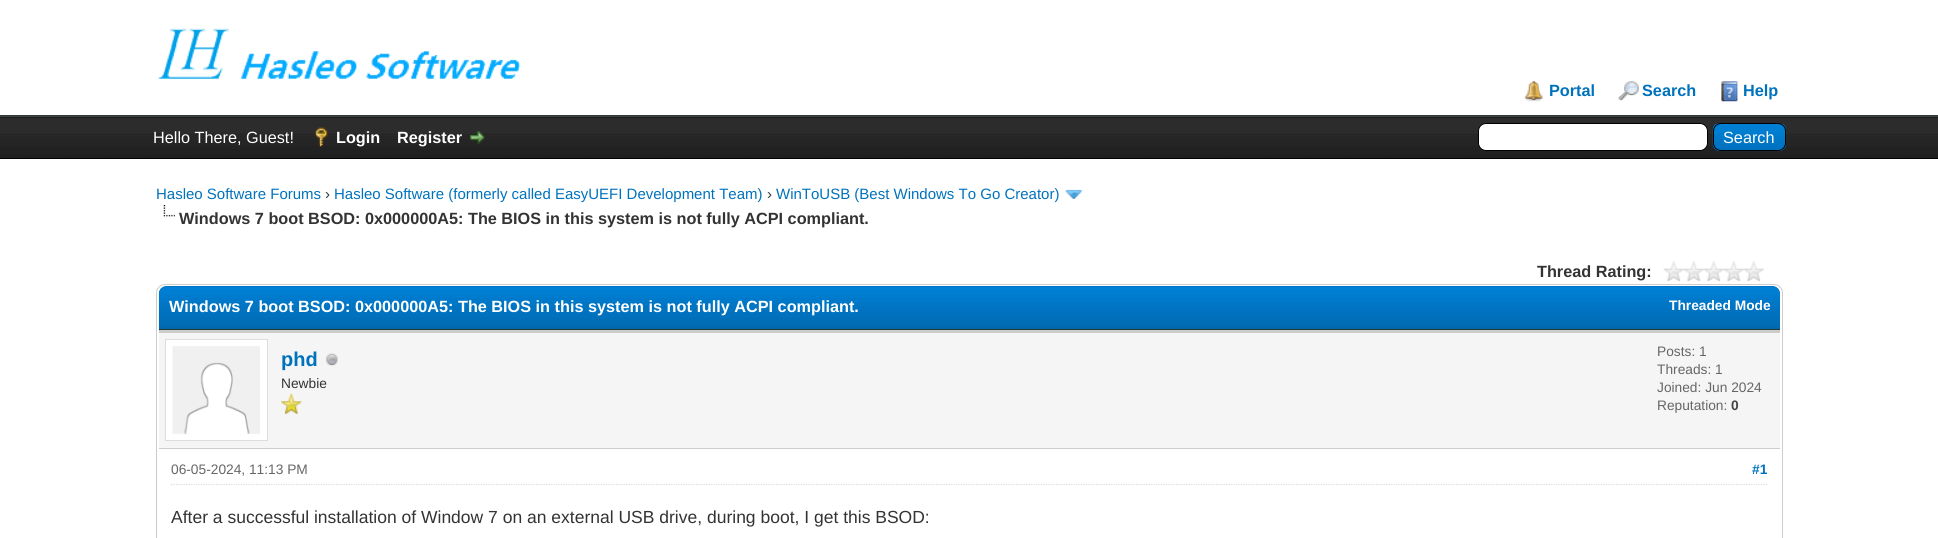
#include <cairo.h>
#include <math.h>
#include <stddef.h>

typedef struct { double x, y; const char *s; } line_t;
typedef struct { double x, y, w, h; unsigned color; } box_t;

static void ink(cairo_t *ctx, unsigned color) {
    cairo_set_source_rgb(ctx, (color >> 16) / 255.0, (color >> 8 & 255) / 255.0, (color & 255) / 255.0);
}

static void round_path(cairo_t *ctx, double x, double y, double w, double h, double r) {
    cairo_new_sub_path(ctx);
    cairo_arc(ctx, x + w - r, y + h - r, r, 0, M_PI / 2);
    cairo_arc(ctx, x + r, y + h - r, r, M_PI / 2, M_PI);
    cairo_arc(ctx, x + r, y + r, r, M_PI, 1.5 * M_PI);
    cairo_arc(ctx, x + w - r, y + r, r, 1.5 * M_PI, 2 * M_PI);
    cairo_close_path(ctx);
}

static void paste(cairo_t *ctx, const char *path, double x, double y, double w, double h) {
    cairo_surface_t *image = cairo_image_surface_create_from_png(path);
    cairo_save(ctx);
    cairo_set_source_surface(ctx, image, x, y);
    cairo_rectangle(ctx, x, y, w, h);
    cairo_fill(ctx);
    cairo_restore(ctx);
    cairo_surface_destroy(image);
}

int main(void) {
    cairo_surface_t *surface = cairo_image_surface_create(CAIRO_FORMAT_RGB24, 1938, 538);
    cairo_t *ctx = cairo_create(surface);
    cairo_font_options_t *options = cairo_font_options_create();
    cairo_font_options_set_hint_metrics(options, CAIRO_HINT_METRICS_OFF);
    cairo_font_options_set_hint_style(options, CAIRO_HINT_STYLE_NONE);
    cairo_set_font_options(ctx, options);
    cairo_set_miter_limit(ctx, 4);
    ink(ctx, 0xFFFFFF);
    cairo_paint(ctx);
    ink(ctx, 0x263C30);
    cairo_rectangle(ctx, 0, 115, 1938, 1);
    cairo_fill(ctx);
    paste(ctx, "media/1.png", 158, 28, 363, 51);
    paste(ctx, "media/2.png", 1524, 81, 19, 21);
    cairo_select_font_face(ctx, "Liberation Sans", CAIRO_FONT_SLANT_NORMAL, CAIRO_FONT_WEIGHT_BOLD);
    cairo_set_font_size(ctx, 16.25);
    ink(ctx, 0x0072BC);
    cairo_move_to(ctx, 1549, 96);
    cairo_show_text(ctx, "Portal");
    paste(ctx, "media/3.png", 1618, 81, 21, 20);
    cairo_move_to(ctx, 1642, 96);
    cairo_show_text(ctx, "Search");
    paste(ctx, "media/4.png", 1721, 81, 17, 21);
    cairo_move_to(ctx, 1743, 96);
    cairo_show_text(ctx, "Help");
    ink(ctx, 0x0F0F0F);
    cairo_rectangle(ctx, 0, 117, 1938, 1);
    cairo_fill(ctx);
    paste(ctx, "media/5.png", 0, 117, 1938, 41);
    ink(ctx, 0x444444);
    cairo_rectangle(ctx, 0, 116, 1938, 1);
    cairo_fill(ctx);
    ink(ctx, 0x000000);
    cairo_rectangle(ctx, 0, 158, 1938, 1);
    cairo_fill(ctx);
    cairo_select_font_face(ctx, "Liberation Sans", CAIRO_FONT_SLANT_NORMAL, CAIRO_FONT_WEIGHT_NORMAL);
    ink(ctx, 0xFFFFFF);
    cairo_move_to(ctx, 153, 143);
    cairo_show_text(ctx, "Hello There, Guest!");
    paste(ctx, "media/6.png", 315, 127, 13, 20);
    cairo_select_font_face(ctx, "Liberation Sans", CAIRO_FONT_SLANT_NORMAL, CAIRO_FONT_WEIGHT_BOLD);
    cairo_move_to(ctx, 336, 143);
    cairo_show_text(ctx, "Login");
    cairo_move_to(ctx, 397, 143);
    cairo_show_text(ctx, "Register");
    paste(ctx, "media/7.png", 469, 131, 16, 13);
    round_path(ctx, 1478.5, 123.5, 229, 27, 7.5);
    cairo_fill_preserve(ctx);
    ink(ctx, 0x000000);
    cairo_set_line_width(ctx, 1);
    cairo_stroke(ctx);
    paste(ctx, "media/8.png", 1712, 123, 75, 29);
    round_path(ctx, 1713.5, 123.5, 72, 27, 7.5);
    cairo_stroke(ctx);
    cairo_select_font_face(ctx, "Liberation Sans", CAIRO_FONT_SLANT_NORMAL, CAIRO_FONT_WEIGHT_NORMAL);
    ink(ctx, 0xFFFFFF);
    cairo_move_to(ctx, 1723, 143);
    cairo_show_text(ctx, "Search");
    cairo_set_font_size(ctx, 15);
    ink(ctx, 0x0072BC);
    cairo_move_to(ctx, 156, 199);
    cairo_show_text(ctx, "Hasleo Software Forums");
    ink(ctx, 0x333333);
    cairo_move_to(ctx, 325, 199);
    cairo_show_text(ctx, "›");
    ink(ctx, 0x0072BC);
    cairo_move_to(ctx, 334, 199);
    cairo_show_text(ctx, "Hasleo Software (formerly called EasyUEFI Development Team)");
    ink(ctx, 0x333333);
    cairo_move_to(ctx, 767, 199);
    cairo_show_text(ctx, "›");
    ink(ctx, 0x0072BC);
    cairo_move_to(ctx, 776, 199);
    cairo_show_text(ctx, "WinToUSB (Best Windows To Go Creator)");
    paste(ctx, "media/9.png", 1065, 189, 18, 10);
    paste(ctx, "media/10.png", 163, 205, 12, 12);
    cairo_select_font_face(ctx, "Liberation Sans", CAIRO_FONT_SLANT_NORMAL, CAIRO_FONT_WEIGHT_BOLD);
    cairo_set_font_size(ctx, 16.25);
    ink(ctx, 0x333333);
    cairo_move_to(ctx, 179, 224);
    cairo_show_text(ctx, "Windows 7 boot BSOD: 0x000000A5: The BIOS in this system is not fully ACPI compliant.");
    cairo_move_to(ctx, 1537, 277);
    cairo_show_text(ctx, "Thread Rating:");
    paste(ctx, "media/11.png", 1663, 261, 101, 21);
    round_path(ctx, 156.5, 284.5, 1626, 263, 8.5);
    ink(ctx, 0xCCCCCC);
    cairo_stroke(ctx);
    ink(ctx, 0x0066A2);
    cairo_new_path(ctx);
    cairo_move_to(ctx, 167, 286);
    cairo_line_to(ctx, 1772, 286);
    cairo_curve_to(ctx, 1776.5, 286, 1780, 289.5, 1780, 294);
    cairo_line_to(ctx, 1780, 330);
    cairo_line_to(ctx, 159, 330);
    cairo_line_to(ctx, 159, 294);
    cairo_curve_to(ctx, 159, 289.5, 162.5, 286, 167, 286);
    cairo_close_path(ctx);
    cairo_fill(ctx);
    paste(ctx, "media/12.png", 158, 286, 1622, 44);
    ink(ctx, 0x263C30);
    cairo_rectangle(ctx, 159, 329, 1621, 1);
    cairo_fill(ctx);
    ink(ctx, 0xFFFFFF);
    cairo_move_to(ctx, 169, 312);
    cairo_show_text(ctx, "Windows 7 boot BSOD: 0x000000A5: The BIOS in this system is not fully ACPI compliant.");
    cairo_set_font_size(ctx, 13.75);
    cairo_move_to(ctx, 1669, 310);
    cairo_show_text(ctx, "Threaded Mode");
    {
        static const box_t items[] = {
            {159, 333, 1621, 115, 0xF5F5F5},
            {159, 330, 1621, 3, 0xCCCCCC},
            {159, 448, 1621, 1, 0xCCCCCC},
        };
        for (size_t i = 0; i < sizeof items / sizeof *items; i++) {
            ink(ctx, items[i].color);
            cairo_rectangle(ctx, items[i].x, items[i].y, items[i].w, items[i].h);
            cairo_fill(ctx);
        }
    }
    ink(ctx, 0xFFFFFF);
    cairo_rectangle(ctx, 165.5, 339.5, 102, 101);
    cairo_fill_preserve(ctx);
    ink(ctx, 0xDDDDDD);
    cairo_stroke(ctx);
    paste(ctx, "media/13.png", 172, 346, 88, 88);
    cairo_set_font_size(ctx, 20);
    ink(ctx, 0x0072BC);
    cairo_move_to(ctx, 281, 366);
    cairo_show_text(ctx, "phd");
    paste(ctx, "media/14.png", 326, 353, 12, 13);
    cairo_select_font_face(ctx, "Liberation Sans", CAIRO_FONT_SLANT_NORMAL, CAIRO_FONT_WEIGHT_NORMAL);
    cairo_set_font_size(ctx, 13.75);
    ink(ctx, 0x333333);
    cairo_move_to(ctx, 281, 388);
    cairo_show_text(ctx, "Newbie");
    paste(ctx, "media/15.png", 281, 393, 21, 21);
    ink(ctx, 0x666666);
    {
        static const line_t items[] = {
            {1657, 356, "Posts: 1"},
            {1657, 374, "Threads: 1"},
            {1657, 392, "Joined: Jun 2024"},
            {1657, 410, "Reputation:"},
        };
        for (size_t i = 0; i < sizeof items / sizeof *items; i++) {
            cairo_move_to(ctx, items[i].x, items[i].y);
            cairo_show_text(ctx, items[i].s);
        }
    }
    cairo_select_font_face(ctx, "Liberation Sans", CAIRO_FONT_SLANT_NORMAL, CAIRO_FONT_WEIGHT_BOLD);
    ink(ctx, 0x444444);
    cairo_move_to(ctx, 1731, 410);
    cairo_show_text(ctx, "0");
    cairo_new_path(ctx);
    cairo_move_to(ctx, 171, 484.5);
    cairo_line_to(ctx, 1767.5, 484.5);
    ink(ctx, 0xDDDDDD);
    cairo_set_line_width(ctx, 1.2);
    cairo_set_dash(ctx, (double[]){1.25, 1.25}, 2, 0);
    cairo_stroke(ctx);
    cairo_select_font_face(ctx, "Liberation Sans", CAIRO_FONT_SLANT_NORMAL, CAIRO_FONT_WEIGHT_NORMAL);
    ink(ctx, 0x666666);
    cairo_move_to(ctx, 171, 474);
    cairo_show_text(ctx, "06-05-2024, 11:13 PM");
    cairo_select_font_face(ctx, "Liberation Sans", CAIRO_FONT_SLANT_NORMAL, CAIRO_FONT_WEIGHT_BOLD);
    ink(ctx, 0x0072BC);
    cairo_move_to(ctx, 1752, 474);
    cairo_show_text(ctx, "#1");
    cairo_select_font_face(ctx, "Liberation Sans", CAIRO_FONT_SLANT_NORMAL, CAIRO_FONT_WEIGHT_NORMAL);
    cairo_set_font_size(ctx, 17.5);
    ink(ctx, 0x333333);
    cairo_move_to(ctx, 171, 523);
    cairo_show_text(ctx, "After a successful installation of Window 7 on an external USB drive, during boot, I get this BSOD:");
    cairo_surface_write_to_png(surface, "image.png");
    cairo_font_options_destroy(options);
    cairo_destroy(ctx);
    cairo_surface_destroy(surface);
    return 0;
}
